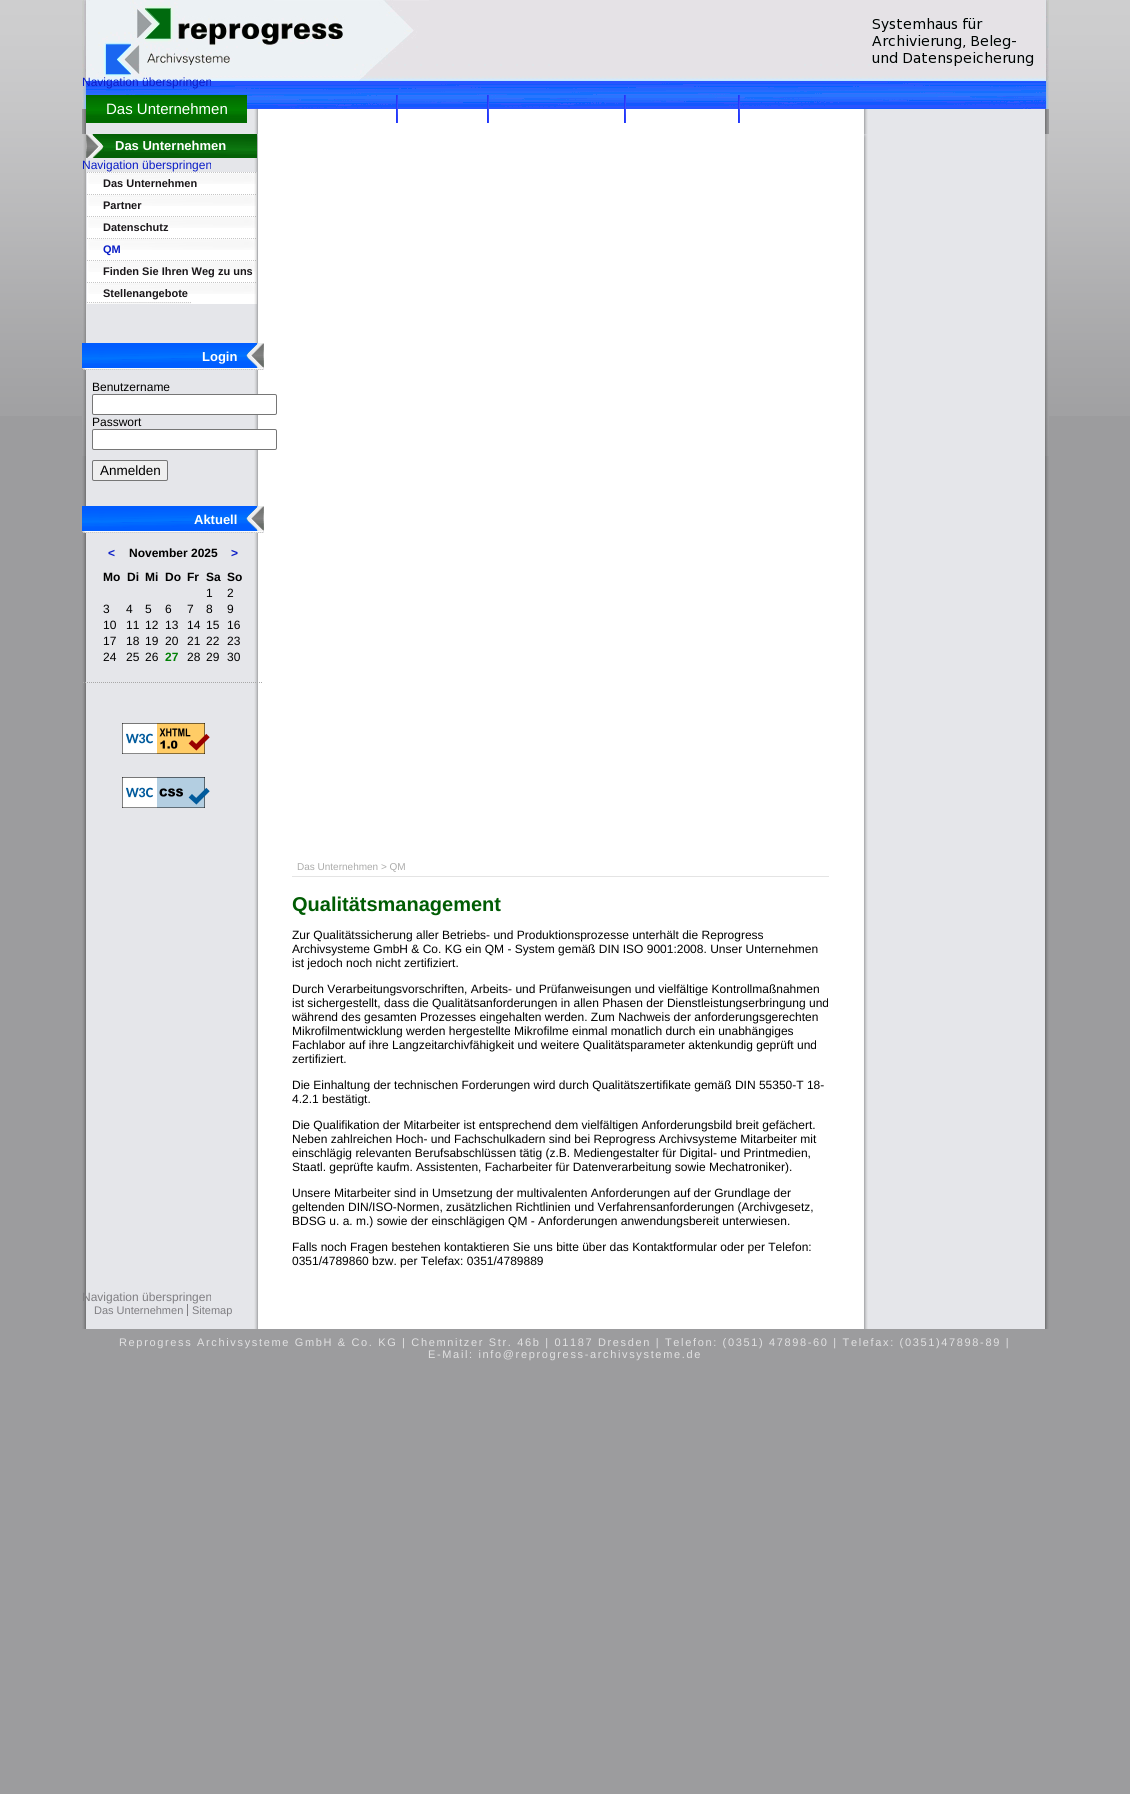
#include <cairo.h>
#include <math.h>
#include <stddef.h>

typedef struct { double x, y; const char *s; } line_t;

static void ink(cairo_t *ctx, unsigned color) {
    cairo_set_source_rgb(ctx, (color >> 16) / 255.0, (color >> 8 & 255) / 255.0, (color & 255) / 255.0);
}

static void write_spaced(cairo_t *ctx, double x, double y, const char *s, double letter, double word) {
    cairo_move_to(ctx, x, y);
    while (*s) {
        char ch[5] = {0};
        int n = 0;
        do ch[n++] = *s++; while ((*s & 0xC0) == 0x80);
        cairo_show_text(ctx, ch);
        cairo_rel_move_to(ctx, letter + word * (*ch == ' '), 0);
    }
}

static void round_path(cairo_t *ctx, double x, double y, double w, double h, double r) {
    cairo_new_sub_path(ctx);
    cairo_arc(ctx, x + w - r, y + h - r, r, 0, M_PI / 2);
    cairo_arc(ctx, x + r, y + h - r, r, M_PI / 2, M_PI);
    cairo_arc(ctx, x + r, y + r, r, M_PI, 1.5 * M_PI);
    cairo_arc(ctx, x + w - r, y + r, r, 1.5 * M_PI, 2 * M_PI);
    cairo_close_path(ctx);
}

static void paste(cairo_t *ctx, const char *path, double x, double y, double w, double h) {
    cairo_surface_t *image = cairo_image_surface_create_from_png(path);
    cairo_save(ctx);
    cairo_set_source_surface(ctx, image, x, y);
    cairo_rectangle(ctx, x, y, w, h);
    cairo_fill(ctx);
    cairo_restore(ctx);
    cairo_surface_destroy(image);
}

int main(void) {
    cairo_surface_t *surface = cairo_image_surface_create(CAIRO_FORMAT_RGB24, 1130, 1794);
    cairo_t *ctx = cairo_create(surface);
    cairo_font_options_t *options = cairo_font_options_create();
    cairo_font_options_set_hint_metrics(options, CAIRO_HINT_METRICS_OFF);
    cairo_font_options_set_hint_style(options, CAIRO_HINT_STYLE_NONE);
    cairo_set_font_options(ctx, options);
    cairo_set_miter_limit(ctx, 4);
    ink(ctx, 0x9C9C9E);
    cairo_paint(ctx);
    paste(ctx, "media/1.png", 0, 0, 1130, 416);
    paste(ctx, "media/2.png", 82, 109, 967, 1220);
    paste(ctx, "media/3.png", 82, 0, 967, 109);
    cairo_select_font_face(ctx, "Liberation Sans", CAIRO_FONT_SLANT_NORMAL, CAIRO_FONT_WEIGHT_NORMAL);
    cairo_set_font_size(ctx, 12);
    ink(ctx, 0x0A1DC7);
    cairo_move_to(ctx, 82, 86);
    cairo_show_text(ctx, "Navigation überspringen");
    paste(ctx, "media/4.png", 86, 95, 161, 28);
    cairo_set_font_size(ctx, 15);
    ink(ctx, 0xFFFFFF);
    cairo_move_to(ctx, 106, 114);
    cairo_show_text(ctx, "Das Unternehmen");
    paste(ctx, "media/5.png", 396, 95, 2, 28);
    paste(ctx, "media/5.png", 487, 95, 2, 28);
    paste(ctx, "media/5.png", 624, 95, 2, 28);
    paste(ctx, "media/5.png", 738, 95, 2, 28);
    paste(ctx, "media/6.png", 82, 134, 967, 322);
    paste(ctx, "media/7.png", 86, 134, 171, 24);
    cairo_select_font_face(ctx, "Liberation Sans", CAIRO_FONT_SLANT_NORMAL, CAIRO_FONT_WEIGHT_BOLD);
    cairo_set_font_size(ctx, 13);
    cairo_move_to(ctx, 115, 150);
    cairo_show_text(ctx, "Das Unternehmen");
    cairo_select_font_face(ctx, "Liberation Sans", CAIRO_FONT_SLANT_NORMAL, CAIRO_FONT_WEIGHT_NORMAL);
    cairo_set_font_size(ctx, 12);
    ink(ctx, 0x0A1DC7);
    cairo_move_to(ctx, 82, 169);
    cairo_show_text(ctx, "Navigation überspringen");
    paste(ctx, "media/8.png", 87, 172, 170, 132);
    paste(ctx, "media/9.png", 87, 172, 169, 12);
    cairo_select_font_face(ctx, "Liberation Sans", CAIRO_FONT_SLANT_NORMAL, CAIRO_FONT_WEIGHT_BOLD);
    cairo_set_font_size(ctx, 11);
    ink(ctx, 0x1A171A);
    cairo_move_to(ctx, 103, 187);
    cairo_show_text(ctx, "Das Unternehmen");
    paste(ctx, "media/9.png", 87, 194, 169, 12);
    cairo_move_to(ctx, 103, 209);
    cairo_show_text(ctx, "Partner");
    paste(ctx, "media/9.png", 87, 216, 169, 12);
    cairo_move_to(ctx, 103, 231);
    cairo_show_text(ctx, "Datenschutz");
    paste(ctx, "media/9.png", 87, 238, 169, 12);
    ink(ctx, 0x0A1DC7);
    cairo_move_to(ctx, 103, 253);
    cairo_show_text(ctx, "QM");
    paste(ctx, "media/9.png", 87, 260, 169, 12);
    ink(ctx, 0x1A171A);
    cairo_move_to(ctx, 103, 275);
    cairo_show_text(ctx, "Finden Sie Ihren Weg zu uns");
    paste(ctx, "media/9.png", 87, 282, 169, 12);
    paste(ctx, "media/10.png", 87, 302, 104, 2);
    cairo_move_to(ctx, 103, 297);
    cairo_show_text(ctx, "Stellenangebote");
    paste(ctx, "media/11.png", 82, 343, 182, 27);
    cairo_set_font_size(ctx, 13);
    ink(ctx, 0xFFFFFF);
    cairo_move_to(ctx, 202, 361);
    cairo_show_text(ctx, "Login");
    cairo_select_font_face(ctx, "Liberation Sans", CAIRO_FONT_SLANT_NORMAL, CAIRO_FONT_WEIGHT_NORMAL);
    cairo_set_font_size(ctx, 12);
    ink(ctx, 0x000000);
    cairo_move_to(ctx, 92, 391);
    cairo_show_text(ctx, "Benutzername");
    ink(ctx, 0xFFFFFF);
    round_path(ctx, 92.5, 394.5, 184, 20, 1.5);
    cairo_fill_preserve(ctx);
    ink(ctx, 0x767676);
    cairo_set_line_width(ctx, 1);
    cairo_stroke(ctx);
    ink(ctx, 0x000000);
    cairo_move_to(ctx, 92, 426);
    cairo_show_text(ctx, "Passwort");
    ink(ctx, 0xFFFFFF);
    round_path(ctx, 92.5, 429.5, 184, 20, 1.5);
    cairo_fill_preserve(ctx);
    ink(ctx, 0x767676);
    cairo_stroke(ctx);
    ink(ctx, 0xEFEFEF);
    round_path(ctx, 92.5, 460.5, 75, 20, 1.5);
    cairo_fill_preserve(ctx);
    ink(ctx, 0x767676);
    cairo_stroke(ctx);
    cairo_set_font_size(ctx, 13.5);
    ink(ctx, 0x000000);
    cairo_move_to(ctx, 100, 475);
    cairo_show_text(ctx, "Anmelden");
    paste(ctx, "media/11.png", 82, 506, 182, 27);
    cairo_select_font_face(ctx, "Liberation Sans", CAIRO_FONT_SLANT_NORMAL, CAIRO_FONT_WEIGHT_BOLD);
    cairo_set_font_size(ctx, 13);
    ink(ctx, 0xFFFFFF);
    cairo_move_to(ctx, 194, 524);
    cairo_show_text(ctx, "Aktuell");
    cairo_set_font_size(ctx, 12);
    ink(ctx, 0x0A1DC7);
    cairo_move_to(ctx, 108, 557);
    cairo_show_text(ctx, "<");
    ink(ctx, 0x000000);
    cairo_move_to(ctx, 129, 557);
    cairo_show_text(ctx, "November 2025");
    ink(ctx, 0x0A1DC7);
    cairo_move_to(ctx, 231, 557);
    cairo_show_text(ctx, ">");
    ink(ctx, 0x000000);
    {
        static const line_t items[] = {
            {103, 581, "Mo"},
            {127, 581, "Di"},
            {145, 581, "Mi"},
            {165, 581, "Do"},
            {187, 581, "Fr"},
            {206, 581, "Sa"},
            {227, 581, "So"},
        };
        for (size_t i = 0; i < sizeof items / sizeof *items; i++) {
            cairo_move_to(ctx, items[i].x, items[i].y);
            cairo_show_text(ctx, items[i].s);
        }
    }
    cairo_select_font_face(ctx, "Liberation Sans", CAIRO_FONT_SLANT_NORMAL, CAIRO_FONT_WEIGHT_NORMAL);
    {
        static const line_t items[] = {
            {206, 597, "1"},
            {227, 597, "2"},
            {103, 613, "3"},
            {126, 613, "4"},
            {145, 613, "5"},
            {165, 613, "6"},
            {187, 613, "7"},
            {206, 613, "8"},
            {227, 613, "9"},
            {103, 629, "10"},
            {126, 629, "11"},
            {145, 629, "12"},
            {165, 629, "13"},
            {187, 629, "14"},
            {206, 629, "15"},
            {227, 629, "16"},
            {103, 645, "17"},
            {126, 645, "18"},
            {145, 645, "19"},
            {165, 645, "20"},
            {187, 645, "21"},
            {206, 645, "22"},
            {227, 645, "23"},
            {103, 661, "24"},
            {126, 661, "25"},
            {145, 661, "26"},
        };
        for (size_t i = 0; i < sizeof items / sizeof *items; i++) {
            cairo_move_to(ctx, items[i].x, items[i].y);
            cairo_show_text(ctx, items[i].s);
        }
    }
    cairo_select_font_face(ctx, "Liberation Sans", CAIRO_FONT_SLANT_NORMAL, CAIRO_FONT_WEIGHT_BOLD);
    ink(ctx, 0x008004);
    cairo_move_to(ctx, 165, 661);
    cairo_show_text(ctx, "27");
    cairo_select_font_face(ctx, "Liberation Sans", CAIRO_FONT_SLANT_NORMAL, CAIRO_FONT_WEIGHT_NORMAL);
    ink(ctx, 0x000000);
    {
        static const line_t items[] = {
            {187, 661, "28"},
            {206, 661, "29"},
            {227, 661, "30"},
        };
        for (size_t i = 0; i < sizeof items / sizeof *items; i++) {
            cairo_move_to(ctx, items[i].x, items[i].y);
            cairo_show_text(ctx, items[i].s);
        }
    }
    cairo_new_path(ctx);
    cairo_move_to(ctx, 83, 682.5);
    cairo_line_to(ctx, 263, 682.5);
    ink(ctx, 0xA8A8A8);
    cairo_set_dash(ctx, (double[]){1, 1}, 2, 0);
    cairo_stroke(ctx);
    paste(ctx, "media/12.png", 122, 723, 88, 31);
    paste(ctx, "media/13.png", 122, 777, 88, 31);
    ink(ctx, 0xE4E4E4);
    cairo_rectangle(ctx, 292, 876, 537, 1);
    cairo_fill(ctx);
    cairo_set_font_size(ctx, 10);
    ink(ctx, 0xABABAA);
    cairo_move_to(ctx, 297, 870);
    cairo_show_text(ctx, "Das Unternehmen > QM");
    cairo_select_font_face(ctx, "Liberation Sans", CAIRO_FONT_SLANT_NORMAL, CAIRO_FONT_WEIGHT_BOLD);
    cairo_set_font_size(ctx, 20);
    ink(ctx, 0x005C03);
    cairo_move_to(ctx, 292, 911);
    cairo_show_text(ctx, "Qualitätsmanagement");
    cairo_select_font_face(ctx, "Liberation Sans", CAIRO_FONT_SLANT_NORMAL, CAIRO_FONT_WEIGHT_NORMAL);
    cairo_set_font_size(ctx, 12);
    ink(ctx, 0x000000);
    {
        static const line_t items[] = {
            {292, 939, "Zur Qualitätssicherung aller Betriebs- und Produktionsprozesse unterhält die Reprogress"},
            {292, 953, "Archivsysteme GmbH & Co. KG ein QM - System gemäß DIN ISO 9001:2008. Unser Unternehmen"},
            {292, 967, "ist jedoch noch nicht zertifiziert."},
            {292, 993, "Durch Verarbeitungsvorschriften, Arbeits- und Prüfanweisungen und vielfältige Kontrollmaßnahmen"},
            {292, 1007, "ist sichergestellt, dass die Qualitätsanforderungen in allen Phasen der Dienstleistungserbringung und"},
            {292, 1021, "während des gesamten Prozesses eingehalten werden. Zum Nachweis der anforderungsgerechten"},
            {292, 1035, "Mikrofilmentwicklung werden hergestellte Mikrofilme einmal monatlich durch ein unabhängiges"},
            {292, 1049, "Fachlabor auf ihre Langzeitarchivfähigkeit und weitere Qualitätsparameter aktenkundig geprüft und"},
            {292, 1063, "zertifiziert."},
            {292, 1089, "Die Einhaltung der technischen Forderungen wird durch Qualitätszertifikate gemäß DIN 55350-T 18-"},
            {292, 1103, "4.2.1 bestätigt."},
            {292, 1129, "Die Qualifikation der Mitarbeiter ist entsprechend dem vielfältigen Anforderungsbild breit gefächert."},
            {292, 1143, "Neben zahlreichen Hoch- und Fachschulkadern sind bei Reprogress Archivsysteme Mitarbeiter mit"},
            {292, 1157, "einschlägig relevanten Berufsabschlüssen tätig (z.B. Mediengestalter für Digital- und Printmedien,"},
            {292, 1171, "Staatl. geprüfte kaufm. Assistenten, Facharbeiter für Datenverarbeitung sowie Mechatroniker)."},
            {292, 1197, "Unsere Mitarbeiter sind in Umsetzung der multivalenten Anforderungen auf der Grundlage der"},
            {292, 1211, "geltenden DIN/ISO-Normen, zusätzlichen Richtlinien und Verfahrensanforderungen (Archivgesetz,"},
            {292, 1225, "BDSG u. a. m.) sowie der einschlägigen QM - Anforderungen anwendungsbereit unterwiesen."},
            {292, 1251, "Falls noch Fragen bestehen kontaktieren Sie uns bitte über das Kontaktformular oder per Telefon:"},
            {292, 1265, "0351/4789860 bzw. per Telefax: 0351/4789889"},
        };
        for (size_t i = 0; i < sizeof items / sizeof *items; i++) {
            cairo_move_to(ctx, items[i].x, items[i].y);
            cairo_show_text(ctx, items[i].s);
        }
    }
    ink(ctx, 0x7F7E82);
    cairo_move_to(ctx, 82, 1301);
    cairo_show_text(ctx, "Navigation überspringen");
    cairo_rectangle(ctx, 187, 1304, 1, 12);
    cairo_fill(ctx);
    cairo_set_font_size(ctx, 11);
    cairo_move_to(ctx, 94, 1314);
    cairo_show_text(ctx, "Das Unternehmen");
    cairo_move_to(ctx, 192, 1314);
    cairo_show_text(ctx, "Sitemap");
    ink(ctx, 0xE1E1E2);
    write_spaced(ctx, 119, 1346, "Reprogress Archivsysteme GmbH & Co. KG | Chemnitzer Str. 46b | 01187 Dresden | Telefon: (0351) 47898-60 | Telefax: (0351)47898-89 |", 1.65, 0);
    write_spaced(ctx, 428, 1358, "E-Mail: info@reprogress-archivsysteme.de", 1.65, 0);
    cairo_surface_write_to_png(surface, "image.png");
    cairo_font_options_destroy(options);
    cairo_destroy(ctx);
    cairo_surface_destroy(surface);
    return 0;
}
